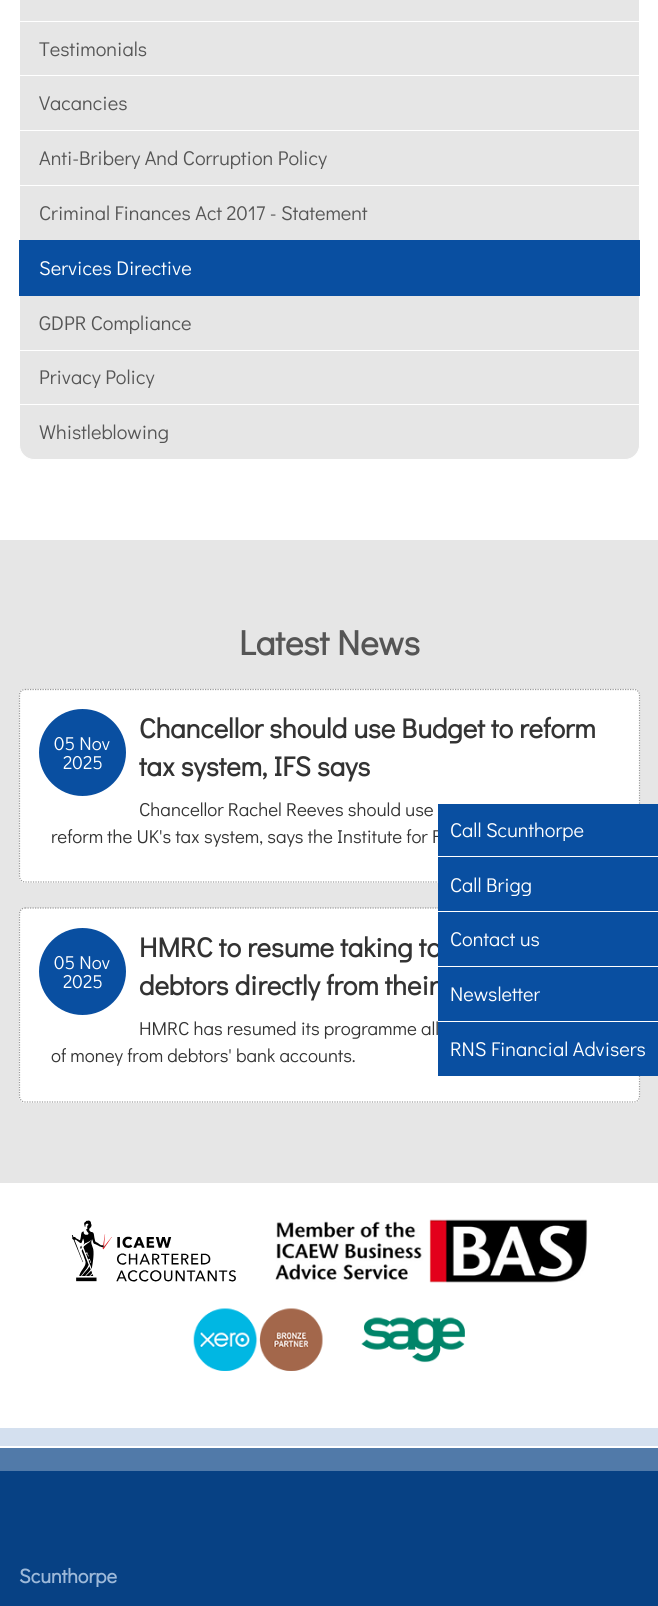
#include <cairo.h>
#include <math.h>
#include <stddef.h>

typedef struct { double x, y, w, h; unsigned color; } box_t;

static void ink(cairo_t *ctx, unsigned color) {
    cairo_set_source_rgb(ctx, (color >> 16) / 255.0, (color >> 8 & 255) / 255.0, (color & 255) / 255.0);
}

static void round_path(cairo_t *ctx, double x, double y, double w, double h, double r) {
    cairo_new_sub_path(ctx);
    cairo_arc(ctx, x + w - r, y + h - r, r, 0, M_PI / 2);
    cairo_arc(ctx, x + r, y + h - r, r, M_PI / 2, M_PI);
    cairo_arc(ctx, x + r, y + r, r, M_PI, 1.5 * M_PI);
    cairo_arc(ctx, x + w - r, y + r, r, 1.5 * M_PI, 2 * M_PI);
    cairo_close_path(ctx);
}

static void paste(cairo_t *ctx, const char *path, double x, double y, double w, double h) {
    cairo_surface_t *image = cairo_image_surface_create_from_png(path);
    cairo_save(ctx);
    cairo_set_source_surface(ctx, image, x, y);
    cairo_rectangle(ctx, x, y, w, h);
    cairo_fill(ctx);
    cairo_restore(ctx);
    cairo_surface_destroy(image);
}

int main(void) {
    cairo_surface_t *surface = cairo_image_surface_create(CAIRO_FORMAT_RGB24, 658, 1606);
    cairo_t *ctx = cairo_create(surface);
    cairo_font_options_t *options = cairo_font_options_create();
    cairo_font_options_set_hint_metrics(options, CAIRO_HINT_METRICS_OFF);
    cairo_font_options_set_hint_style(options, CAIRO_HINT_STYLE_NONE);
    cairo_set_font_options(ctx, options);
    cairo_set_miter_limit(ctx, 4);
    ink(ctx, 0xFFFFFF);
    cairo_paint(ctx);
    ink(ctx, 0xE6E6E6);
    cairo_rectangle(ctx, 20, 0, 619, 21);
    cairo_fill(ctx);
    cairo_rectangle(ctx, 20, 22, 619, 53);
    cairo_fill(ctx);
    cairo_select_font_face(ctx, "Didact Gothic", CAIRO_FONT_SLANT_NORMAL, CAIRO_FONT_WEIGHT_NORMAL);
    cairo_set_font_size(ctx, 20);
    ink(ctx, 0x555555);
    cairo_move_to(ctx, 39, 56);
    cairo_show_text(ctx, "Testimonials");
    ink(ctx, 0xE6E6E6);
    cairo_rectangle(ctx, 20, 76, 619, 54);
    cairo_fill(ctx);
    ink(ctx, 0x555555);
    cairo_move_to(ctx, 39, 110);
    cairo_show_text(ctx, "Vacancies");
    ink(ctx, 0xE6E6E6);
    cairo_rectangle(ctx, 20, 131, 619, 54);
    cairo_fill(ctx);
    ink(ctx, 0x555555);
    cairo_move_to(ctx, 39, 165);
    cairo_show_text(ctx, "Anti-Bribery And Corruption Policy");
    ink(ctx, 0xE6E6E6);
    cairo_rectangle(ctx, 20, 186, 619, 54);
    cairo_fill(ctx);
    ink(ctx, 0x555555);
    cairo_move_to(ctx, 39, 220);
    cairo_show_text(ctx, "Criminal Finances Act 2017 - Statement");
    ink(ctx, 0x094FA1);
    cairo_rectangle(ctx, 19, 240, 621, 56);
    cairo_fill(ctx);
    ink(ctx, 0xFFFFFF);
    cairo_move_to(ctx, 39, 275);
    cairo_show_text(ctx, "Services Directive");
    ink(ctx, 0xE6E6E6);
    cairo_rectangle(ctx, 20, 296, 619, 54);
    cairo_fill(ctx);
    ink(ctx, 0x555555);
    cairo_move_to(ctx, 39, 330);
    cairo_show_text(ctx, "GDPR Compliance");
    ink(ctx, 0xE6E6E6);
    cairo_rectangle(ctx, 20, 351, 619, 53);
    cairo_fill(ctx);
    ink(ctx, 0x555555);
    cairo_move_to(ctx, 39, 384);
    cairo_show_text(ctx, "Privacy Policy");
    ink(ctx, 0xE6E6E6);
    cairo_new_path(ctx);
    cairo_move_to(ctx, 19.5, 404.5);
    cairo_line_to(ctx, 639.5, 404.5);
    cairo_line_to(ctx, 639.5, 445);
    cairo_curve_to(ctx, 639.5, 453, 633, 459.5, 625, 459.5);
    cairo_line_to(ctx, 34, 459.5);
    cairo_curve_to(ctx, 26, 459.5, 19.5, 453, 19.5, 445);
    cairo_close_path(ctx);
    cairo_fill_preserve(ctx);
    ink(ctx, 0xFFFFFF);
    cairo_set_line_width(ctx, 1);
    cairo_stroke(ctx);
    ink(ctx, 0x555555);
    cairo_move_to(ctx, 39, 439);
    cairo_show_text(ctx, "Whistleblowing");
    ink(ctx, 0xE6E6E6);
    cairo_rectangle(ctx, 0, 540, 658, 643);
    cairo_fill(ctx);
    cairo_select_font_face(ctx, "Didact Gothic", CAIRO_FONT_SLANT_NORMAL, CAIRO_FONT_WEIGHT_BOLD);
    cairo_set_font_size(ctx, 35);
    ink(ctx, 0x555555);
    cairo_move_to(ctx, 239, 655);
    cairo_show_text(ctx, "Latest News");
    ink(ctx, 0xFFFFFF);
    round_path(ctx, 19, 689, 621, 194, 6);
    cairo_fill(ctx);
    cairo_new_path(ctx);
    cairo_move_to(ctx, 25, 689.5);
    cairo_line_to(ctx, 634, 689.5);
    cairo_curve_to(ctx, 637, 689.5, 639.5, 692, 639.5, 695);
    cairo_line_to(ctx, 639.5, 876);
    cairo_curve_to(ctx, 639.5, 879.5, 637, 882, 634, 882);
    cairo_line_to(ctx, 25, 882);
    cairo_curve_to(ctx, 22, 882, 19.5, 879.5, 19.5, 876);
    cairo_line_to(ctx, 19.5, 695);
    cairo_curve_to(ctx, 19.5, 692, 22, 689.5, 25, 689.5);
    cairo_close_path(ctx);
    ink(ctx, 0x999999);
    cairo_set_line_width(ctx, 1.2);
    cairo_set_dash(ctx, (double[]){1.25, 1.25}, 2, 0);
    cairo_stroke(ctx);
    cairo_set_font_size(ctx, 27.5);
    ink(ctx, 0x333333);
    cairo_move_to(ctx, 139, 738);
    cairo_show_text(ctx, "Chancellor should use Budget to reform");
    cairo_move_to(ctx, 139, 776);
    cairo_show_text(ctx, "tax system, IFS says");
    cairo_select_font_face(ctx, "Didact Gothic", CAIRO_FONT_SLANT_NORMAL, CAIRO_FONT_WEIGHT_NORMAL);
    cairo_set_font_size(ctx, 18.75);
    cairo_move_to(ctx, 139, 816);
    cairo_show_text(ctx, "Chancellor Rachel Reeves should use");
    cairo_move_to(ctx, 51, 843);
    cairo_show_text(ctx, "reform the UK's tax system, says the Institute for F");
    ink(ctx, 0x094FA1);
    cairo_new_path(ctx);
    cairo_arc(ctx, 82.5, 752.5, 43.5, 0, 2 * M_PI);
    cairo_fill(ctx);
    ink(ctx, 0xFFFFFF);
    cairo_move_to(ctx, 54, 750);
    cairo_show_text(ctx, "05 Nov");
    cairo_move_to(ctx, 63, 769);
    cairo_show_text(ctx, "2025");
    round_path(ctx, 19, 908, 621, 195, 6);
    cairo_fill(ctx);
    cairo_new_path(ctx);
    cairo_move_to(ctx, 25, 908);
    cairo_line_to(ctx, 634, 908);
    cairo_curve_to(ctx, 637, 908, 639.5, 910.5, 639.5, 914);
    cairo_line_to(ctx, 639.5, 1096);
    cairo_curve_to(ctx, 639.5, 1099.5, 637, 1102, 634, 1102);
    cairo_line_to(ctx, 25, 1102);
    cairo_curve_to(ctx, 22, 1102, 19.5, 1099.5, 19.5, 1096);
    cairo_line_to(ctx, 19.5, 914);
    cairo_curve_to(ctx, 19.5, 910.5, 22, 908, 25, 908);
    cairo_close_path(ctx);
    ink(ctx, 0x999999);
    cairo_stroke(ctx);
    cairo_select_font_face(ctx, "Didact Gothic", CAIRO_FONT_SLANT_NORMAL, CAIRO_FONT_WEIGHT_BOLD);
    cairo_set_font_size(ctx, 27.5);
    ink(ctx, 0x333333);
    cairo_move_to(ctx, 139, 957);
    cairo_show_text(ctx, "HMRC to resume taking ta");
    cairo_move_to(ctx, 139, 995);
    cairo_show_text(ctx, "debtors directly from their");
    cairo_select_font_face(ctx, "Didact Gothic", CAIRO_FONT_SLANT_NORMAL, CAIRO_FONT_WEIGHT_NORMAL);
    cairo_set_font_size(ctx, 18.75);
    cairo_move_to(ctx, 139, 1035);
    cairo_show_text(ctx, "HMRC has resumed its programme all");
    cairo_move_to(ctx, 51, 1062);
    cairo_show_text(ctx, "of money from debtors' bank accounts.");
    ink(ctx, 0x094FA1);
    cairo_new_path(ctx);
    cairo_arc(ctx, 82.5, 971.5, 43.5, 0, 2 * M_PI);
    cairo_fill(ctx);
    ink(ctx, 0xFFFFFF);
    cairo_move_to(ctx, 54, 969);
    cairo_show_text(ctx, "05 Nov");
    cairo_move_to(ctx, 63, 988);
    cairo_show_text(ctx, "2025");
    ink(ctx, 0x094FA1);
    cairo_rectangle(ctx, 438, 804, 220, 272);
    cairo_fill(ctx);
    ink(ctx, 0xFFFFFF);
    cairo_rectangle(ctx, 438, 856, 220, 1);
    cairo_fill(ctx);
    cairo_set_font_size(ctx, 20);
    cairo_move_to(ctx, 450, 837);
    cairo_show_text(ctx, "Call Scunthorpe");
    cairo_rectangle(ctx, 438, 911, 220, 1);
    cairo_fill(ctx);
    cairo_move_to(ctx, 450, 892);
    cairo_show_text(ctx, "Call Brigg");
    cairo_rectangle(ctx, 438, 966, 220, 1);
    cairo_fill(ctx);
    cairo_move_to(ctx, 450, 946);
    cairo_show_text(ctx, "Contact us");
    cairo_rectangle(ctx, 438, 1021, 220, 1);
    cairo_fill(ctx);
    cairo_move_to(ctx, 450, 1001);
    cairo_show_text(ctx, "Newsletter");
    cairo_move_to(ctx, 450, 1056);
    cairo_show_text(ctx, "RNS Financial Advisers");
    paste(ctx, "media/1.png", 71, 1220, 165, 62);
    paste(ctx, "media/2.png", 275, 1219, 313, 64);
    paste(ctx, "media/3.png", 193, 1308, 130, 63);
    paste(ctx, "media/4.png", 361, 1317, 104, 46);
    {
        static const box_t items[] = {
            {0, 1471, 658, 135, 0x074184},
            {0, 1448, 658, 23, 0x517AA9},
            {0, 1428, 658, 18, 0xD4E0EF},
        };
        for (size_t i = 0; i < sizeof items / sizeof *items; i++) {
            ink(ctx, items[i].color);
            cairo_rectangle(ctx, items[i].x, items[i].y, items[i].w, items[i].h);
            cairo_fill(ctx);
        }
    }
    cairo_select_font_face(ctx, "Didact Gothic", CAIRO_FONT_SLANT_NORMAL, CAIRO_FONT_WEIGHT_BOLD);
    ink(ctx, 0x9DB9D9);
    cairo_move_to(ctx, 19, 1583);
    cairo_show_text(ctx, "Scunthorpe");
    cairo_surface_write_to_png(surface, "image.png");
    cairo_font_options_destroy(options);
    cairo_destroy(ctx);
    cairo_surface_destroy(surface);
    return 0;
}
